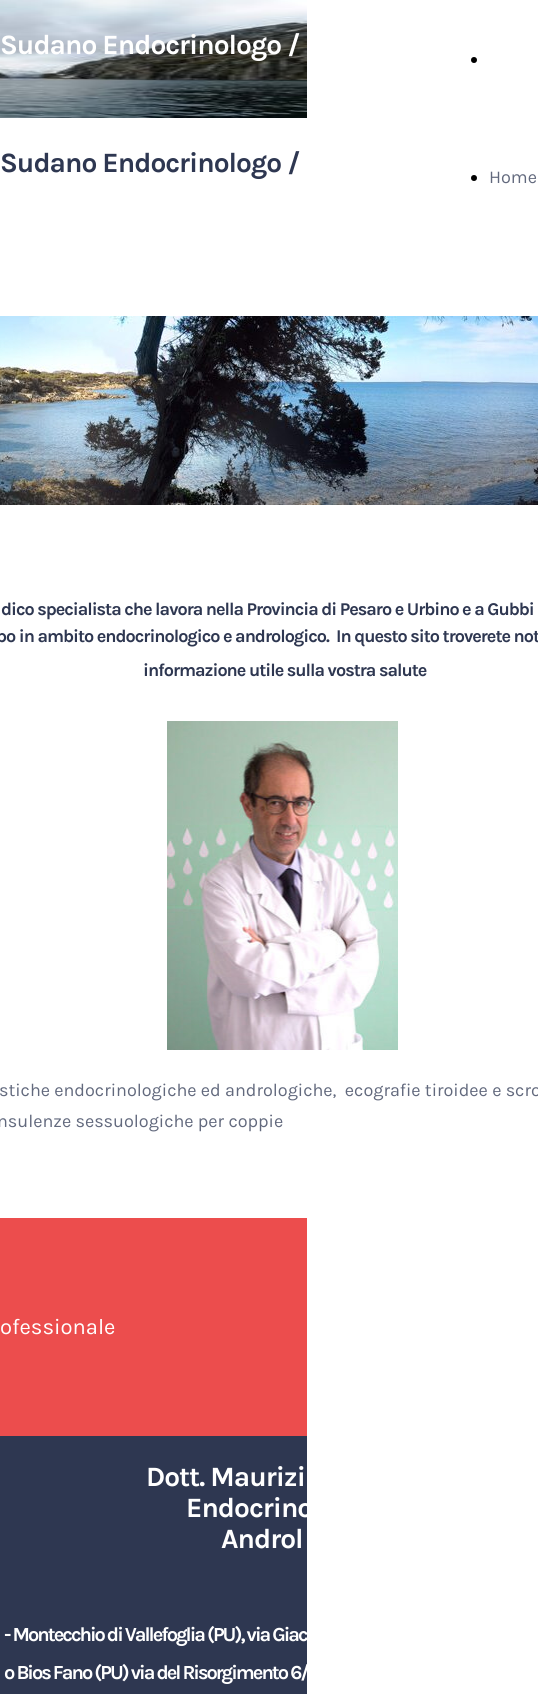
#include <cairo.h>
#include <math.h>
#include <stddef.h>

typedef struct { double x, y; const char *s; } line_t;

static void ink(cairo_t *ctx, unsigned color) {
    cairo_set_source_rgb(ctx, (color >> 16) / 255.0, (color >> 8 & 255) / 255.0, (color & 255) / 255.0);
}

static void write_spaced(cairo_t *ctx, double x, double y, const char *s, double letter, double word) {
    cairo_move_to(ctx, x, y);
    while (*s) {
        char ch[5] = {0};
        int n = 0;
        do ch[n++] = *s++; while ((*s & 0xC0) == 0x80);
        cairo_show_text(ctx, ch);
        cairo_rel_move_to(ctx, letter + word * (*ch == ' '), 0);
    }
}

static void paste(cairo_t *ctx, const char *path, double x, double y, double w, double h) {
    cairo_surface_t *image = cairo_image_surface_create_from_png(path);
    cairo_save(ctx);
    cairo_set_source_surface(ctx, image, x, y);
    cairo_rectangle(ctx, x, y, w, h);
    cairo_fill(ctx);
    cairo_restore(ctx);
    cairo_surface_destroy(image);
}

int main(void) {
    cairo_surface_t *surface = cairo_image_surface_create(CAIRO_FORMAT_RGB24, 538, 1694);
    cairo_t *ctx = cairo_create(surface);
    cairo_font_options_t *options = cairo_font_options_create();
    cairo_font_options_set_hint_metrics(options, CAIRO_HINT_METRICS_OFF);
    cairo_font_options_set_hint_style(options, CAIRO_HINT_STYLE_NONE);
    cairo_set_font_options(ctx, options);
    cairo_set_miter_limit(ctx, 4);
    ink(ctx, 0xFFFFFF);
    cairo_paint(ctx);
    paste(ctx, "media/1.png", 0, 0, 307, 118);
    cairo_select_font_face(ctx, "Karla", CAIRO_FONT_SLANT_NORMAL, CAIRO_FONT_WEIGHT_BOLD);
    cairo_set_font_size(ctx, 28);
    ink(ctx, 0xFFFFFF);
    write_spaced(ctx, 0, 54, "Sudano Endocrinologo /", -1, 0);
    ink(ctx, 0x000000);
    cairo_new_path(ctx);
    cairo_arc(ctx, 474, 60, 3, 0, 2 * M_PI);
    cairo_fill(ctx);
    ink(ctx, 0x2E3751);
    write_spaced(ctx, 0, 172, "Sudano Endocrinologo /", -1, 0);
    ink(ctx, 0x000000);
    cairo_new_path(ctx);
    cairo_arc(ctx, 474, 178, 3, 0, 2 * M_PI);
    cairo_fill(ctx);
    cairo_select_font_face(ctx, "Karla", CAIRO_FONT_SLANT_NORMAL, CAIRO_FONT_WEIGHT_NORMAL);
    cairo_set_font_size(ctx, 18);
    ink(ctx, 0x62697D);
    cairo_move_to(ctx, 489, 183);
    cairo_show_text(ctx, "Home");
    paste(ctx, "media/2.png", 0, 316, 538, 189);
    cairo_select_font_face(ctx, "Karla", CAIRO_FONT_SLANT_NORMAL, CAIRO_FONT_WEIGHT_BOLD);
    ink(ctx, 0x2E3751);
    {
        static const line_t items[] = {
            {1, 615, "dico specialista che lavora nella Provincia di Pesaro e Urbino e a Gubbi"},
            {-4, 642, "po in ambito endocrinologico e andrologico.  In questo sito troverete not"},
            {143, 676, "informazione utile sulla vostra salute"},
        };
        for (size_t i = 0; i < sizeof items / sizeof *items; i++) {
            write_spaced(ctx, items[i].x, items[i].y, items[i].s, -1, 0);
        }
    }
    paste(ctx, "media/3.png", 167, 721, 231, 329);
    cairo_select_font_face(ctx, "Karla", CAIRO_FONT_SLANT_NORMAL, CAIRO_FONT_WEIGHT_NORMAL);
    ink(ctx, 0x62697D);
    cairo_move_to(ctx, -1, 1096);
    cairo_show_text(ctx, "stiche endocrinologiche ed andrologiche,  ecografie tiroidee e scro");
    cairo_move_to(ctx, -3, 1127);
    cairo_show_text(ctx, "nsulenze sessuologiche per coppie");
    ink(ctx, 0xEC4D4D);
    cairo_rectangle(ctx, 0, 1218, 307, 218);
    cairo_fill(ctx);
    cairo_set_font_size(ctx, 22);
    ink(ctx, 0xFFFFFF);
    cairo_move_to(ctx, 0, 1334);
    cairo_show_text(ctx, "ofessionale");
    ink(ctx, 0x2E3751);
    cairo_rectangle(ctx, 0, 1436, 307, 258);
    cairo_fill(ctx);
    cairo_select_font_face(ctx, "Karla", CAIRO_FONT_SLANT_NORMAL, CAIRO_FONT_WEIGHT_BOLD);
    cairo_set_font_size(ctx, 28);
    ink(ctx, 0xFFFFFF);
    {
        static const line_t items[] = {
            {146, 1486, "Dott. Maurizi"},
            {186, 1517, "Endocrino"},
            {221, 1548, "Androl"},
        };
        for (size_t i = 0; i < sizeof items / sizeof *items; i++) {
            write_spaced(ctx, items[i].x, items[i].y, items[i].s, -1, 0);
        }
    }
    cairo_set_font_size(ctx, 20);
    write_spaced(ctx, 4, 1641, "- Montecchio di Vallefoglia (PU), via Giac", -2, 0);
    write_spaced(ctx, 4, 1679, "o Bios Fano (PU) via del Risorgimento 6/", -2, 0);
    cairo_surface_write_to_png(surface, "image.png");
    cairo_font_options_destroy(options);
    cairo_destroy(ctx);
    cairo_surface_destroy(surface);
    return 0;
}
